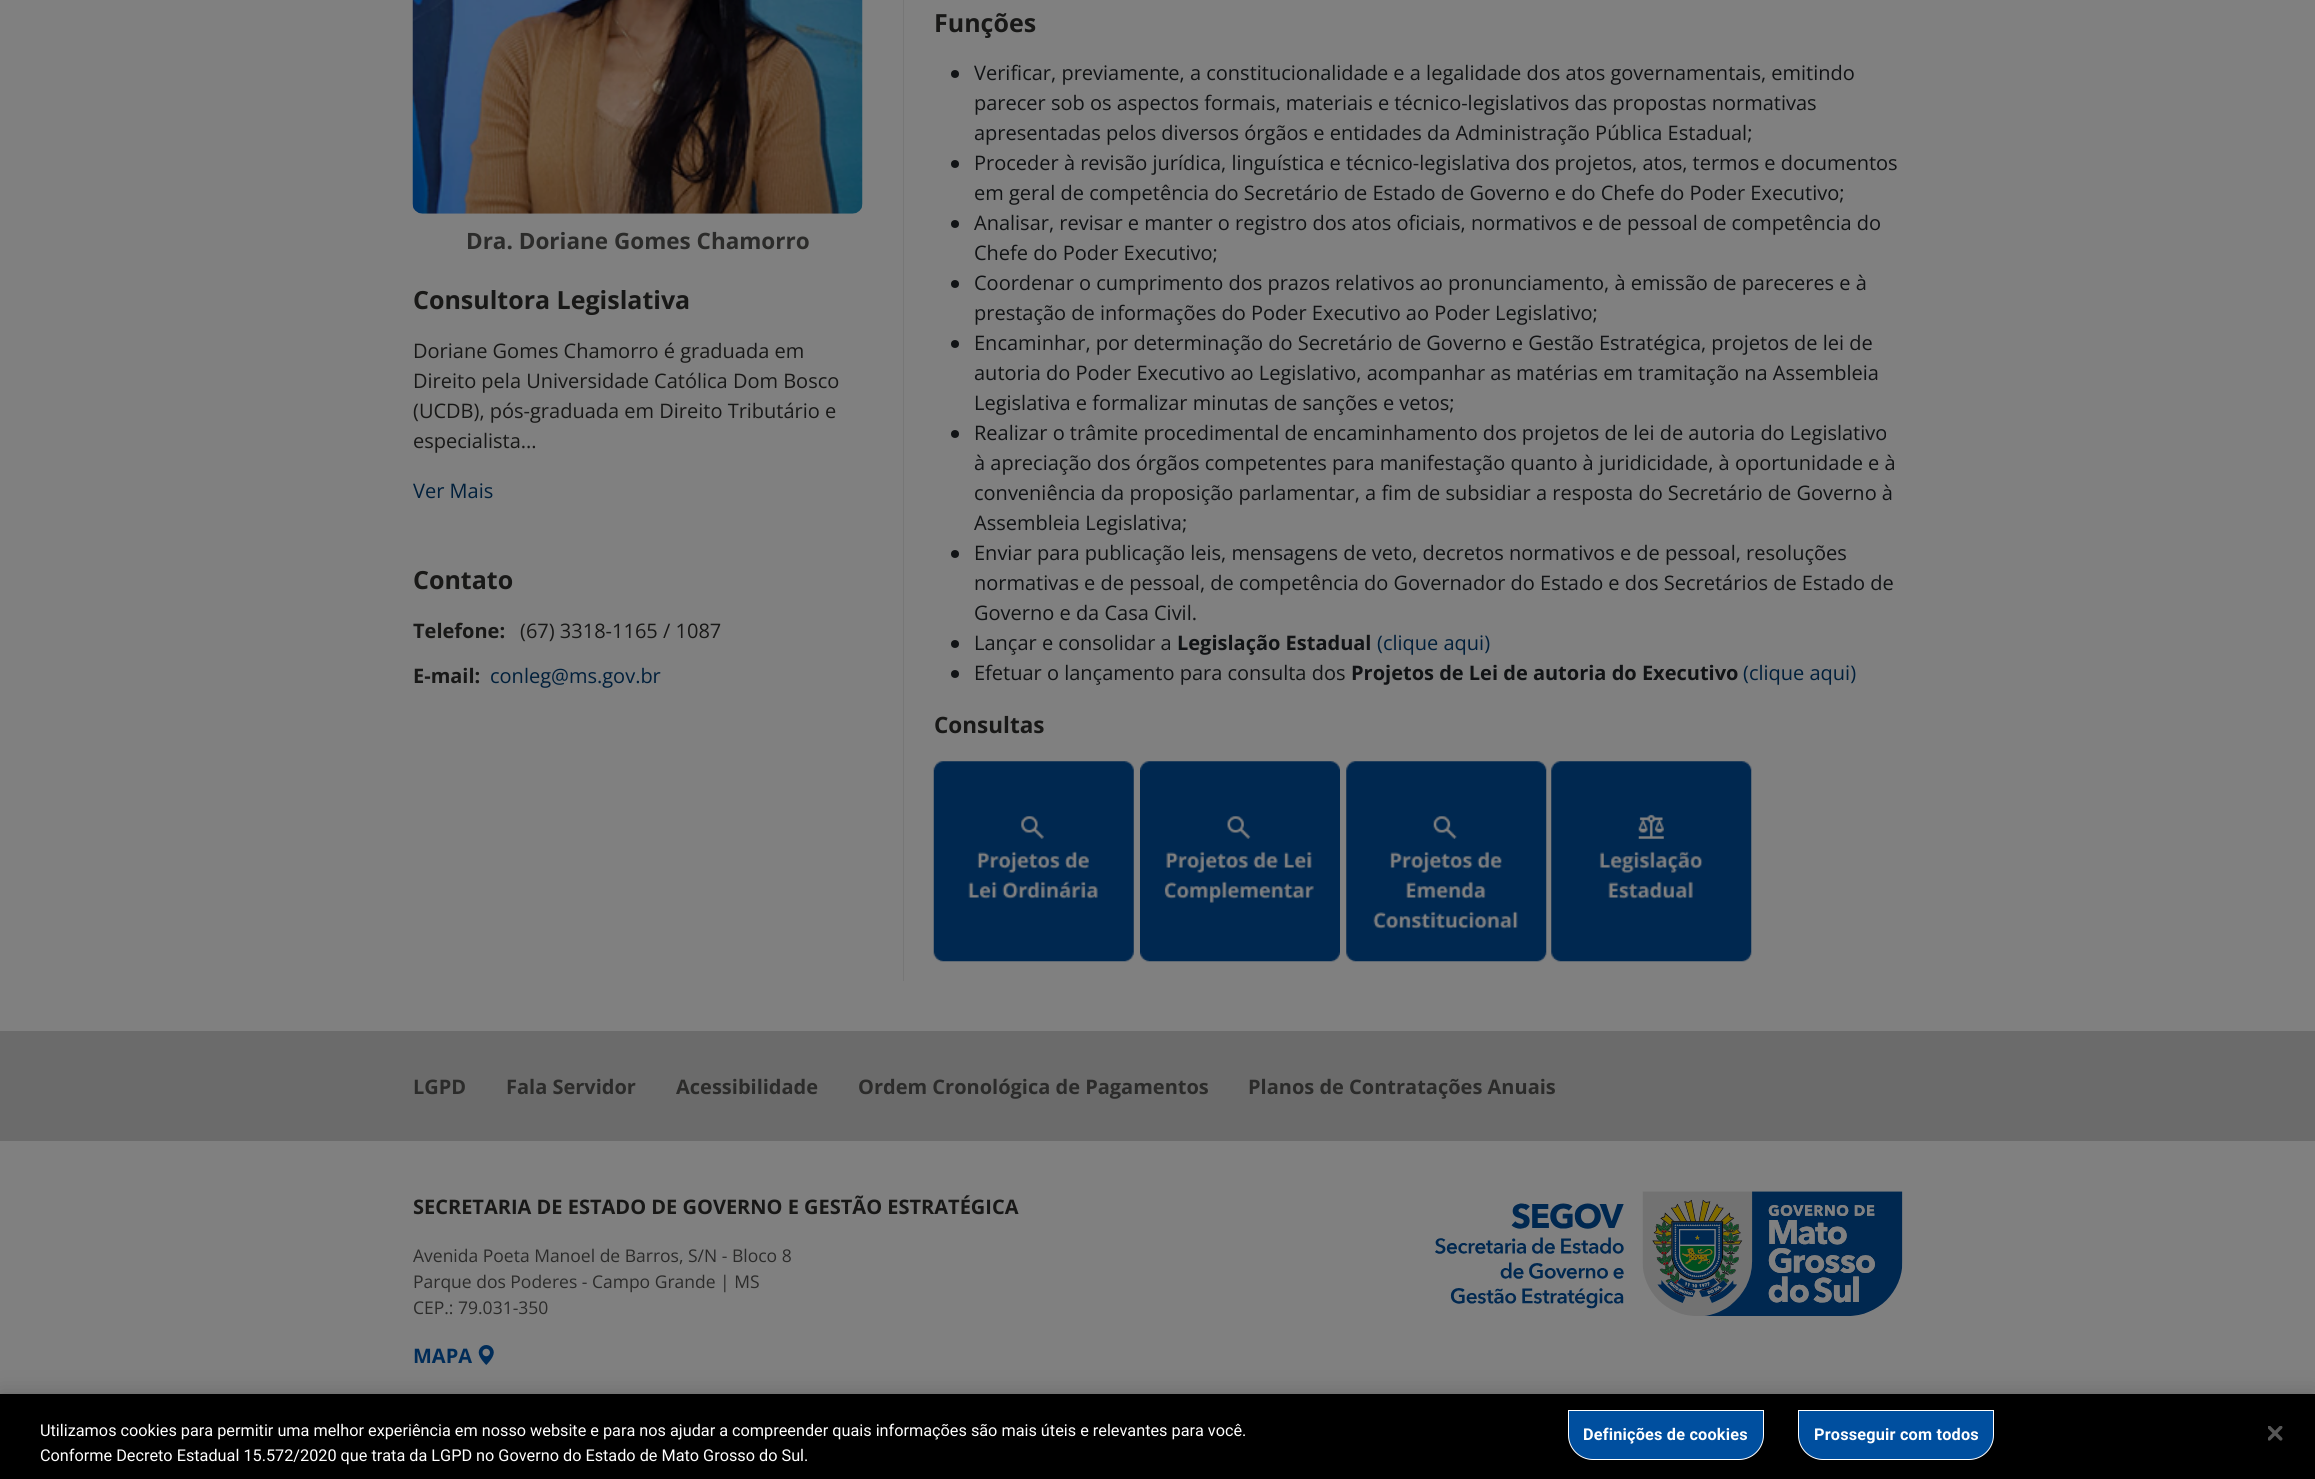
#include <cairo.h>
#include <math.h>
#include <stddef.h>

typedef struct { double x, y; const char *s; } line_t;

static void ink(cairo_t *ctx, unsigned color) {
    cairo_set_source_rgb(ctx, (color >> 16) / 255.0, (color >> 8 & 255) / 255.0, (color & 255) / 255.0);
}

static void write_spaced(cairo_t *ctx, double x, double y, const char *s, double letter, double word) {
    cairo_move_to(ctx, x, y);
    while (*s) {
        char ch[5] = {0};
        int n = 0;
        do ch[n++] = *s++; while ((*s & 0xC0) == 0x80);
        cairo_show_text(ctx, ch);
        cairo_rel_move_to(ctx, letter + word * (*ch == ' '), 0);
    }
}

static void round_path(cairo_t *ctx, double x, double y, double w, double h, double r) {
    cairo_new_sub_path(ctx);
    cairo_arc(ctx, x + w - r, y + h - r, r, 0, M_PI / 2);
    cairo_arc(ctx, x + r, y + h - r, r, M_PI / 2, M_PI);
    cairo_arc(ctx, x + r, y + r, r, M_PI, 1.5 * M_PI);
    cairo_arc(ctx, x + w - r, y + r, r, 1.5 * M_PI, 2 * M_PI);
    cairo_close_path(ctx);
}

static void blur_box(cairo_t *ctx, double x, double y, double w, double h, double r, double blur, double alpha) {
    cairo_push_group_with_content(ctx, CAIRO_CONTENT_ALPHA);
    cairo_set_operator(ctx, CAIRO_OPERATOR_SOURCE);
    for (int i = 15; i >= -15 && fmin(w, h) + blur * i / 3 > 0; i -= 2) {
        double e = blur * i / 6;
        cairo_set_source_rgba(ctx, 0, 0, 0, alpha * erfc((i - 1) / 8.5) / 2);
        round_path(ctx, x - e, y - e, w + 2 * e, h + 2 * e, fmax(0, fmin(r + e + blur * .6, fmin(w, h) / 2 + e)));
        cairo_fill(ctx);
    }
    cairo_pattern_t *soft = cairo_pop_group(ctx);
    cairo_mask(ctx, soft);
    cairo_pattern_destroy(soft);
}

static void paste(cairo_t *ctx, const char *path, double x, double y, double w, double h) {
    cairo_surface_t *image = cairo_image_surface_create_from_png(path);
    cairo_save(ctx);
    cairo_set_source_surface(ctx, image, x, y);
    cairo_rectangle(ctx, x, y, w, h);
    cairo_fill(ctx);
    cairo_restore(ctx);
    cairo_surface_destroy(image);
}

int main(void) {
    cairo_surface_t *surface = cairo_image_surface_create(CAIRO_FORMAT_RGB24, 2315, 1479);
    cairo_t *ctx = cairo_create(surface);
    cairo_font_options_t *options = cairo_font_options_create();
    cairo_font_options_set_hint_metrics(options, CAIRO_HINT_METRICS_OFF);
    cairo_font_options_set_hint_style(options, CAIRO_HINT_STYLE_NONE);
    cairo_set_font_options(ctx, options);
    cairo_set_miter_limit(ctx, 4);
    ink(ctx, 0x808080);
    cairo_paint(ctx);
    ink(ctx, 0x767676);
    cairo_rectangle(ctx, 903, 0, 1, 981);
    cairo_fill(ctx);
    paste(ctx, "media/1.png", 412, 0, 451, 214);
    cairo_select_font_face(ctx, "Open Sans", CAIRO_FONT_SLANT_NORMAL, CAIRO_FONT_WEIGHT_BOLD);
    cairo_set_font_size(ctx, 22.5);
    ink(ctx, 0x2B2B2A);
    cairo_move_to(ctx, 466, 249);
    cairo_show_text(ctx, "Dra. Doriane Gomes Chamorro");
    cairo_set_font_size(ctx, 25);
    ink(ctx, 0x181817);
    cairo_move_to(ctx, 413, 309);
    cairo_show_text(ctx, "Consultora Legislativa");
    cairo_select_font_face(ctx, "Open Sans", CAIRO_FONT_SLANT_NORMAL, CAIRO_FONT_WEIGHT_NORMAL);
    cairo_set_font_size(ctx, 20);
    {
        static const line_t items[] = {
            {413, 358, "Doriane Gomes Chamorro é graduada em"},
            {413, 388, "Direito pela Universidade Católica Dom Bosco"},
            {413, 418, "(UCDB), pós-graduada em Direito Tributário e"},
            {413, 448, "especialista..."},
        };
        for (size_t i = 0; i < sizeof items / sizeof *items; i++) {
            cairo_move_to(ctx, items[i].x, items[i].y);
            cairo_show_text(ctx, items[i].s);
        }
    }
    ink(ctx, 0x001F3B);
    cairo_move_to(ctx, 413, 498);
    cairo_show_text(ctx, "Ver Mais");
    cairo_select_font_face(ctx, "Open Sans", CAIRO_FONT_SLANT_NORMAL, CAIRO_FONT_WEIGHT_BOLD);
    cairo_set_font_size(ctx, 25);
    ink(ctx, 0x181817);
    cairo_move_to(ctx, 413, 589);
    cairo_show_text(ctx, "Contato");
    cairo_set_font_size(ctx, 20);
    cairo_move_to(ctx, 413, 638);
    cairo_show_text(ctx, "Telefone:");
    cairo_select_font_face(ctx, "Open Sans", CAIRO_FONT_SLANT_NORMAL, CAIRO_FONT_WEIGHT_NORMAL);
    cairo_move_to(ctx, 520, 638);
    cairo_show_text(ctx, "(67) 3318-1165 / 1087");
    cairo_select_font_face(ctx, "Open Sans", CAIRO_FONT_SLANT_NORMAL, CAIRO_FONT_WEIGHT_BOLD);
    cairo_move_to(ctx, 413, 683);
    cairo_show_text(ctx, "E-mail:");
    cairo_select_font_face(ctx, "Open Sans", CAIRO_FONT_SLANT_NORMAL, CAIRO_FONT_WEIGHT_NORMAL);
    ink(ctx, 0x001F3B);
    cairo_move_to(ctx, 490, 683);
    cairo_show_text(ctx, "conleg@ms.gov.br");
    cairo_select_font_face(ctx, "Open Sans", CAIRO_FONT_SLANT_NORMAL, CAIRO_FONT_WEIGHT_BOLD);
    cairo_set_font_size(ctx, 25);
    ink(ctx, 0x181817);
    cairo_move_to(ctx, 934, 32);
    cairo_show_text(ctx, "Funções");
    ink(ctx, 0x111315);
    cairo_new_path(ctx);
    cairo_arc(ctx, 955, 74, 4, 0, 2 * M_PI);
    cairo_fill(ctx);
    cairo_select_font_face(ctx, "Open Sans", CAIRO_FONT_SLANT_NORMAL, CAIRO_FONT_WEIGHT_NORMAL);
    cairo_set_font_size(ctx, 20);
    {
        static const line_t items[] = {
            {974, 80, "Verificar, previamente, a constitucionalidade e a legalidade dos atos governamentais, emitindo"},
            {974, 110, "parecer sob os aspectos formais, materiais e técnico-legislativos das propostas normativas"},
            {974, 140, "apresentadas pelos diversos órgãos e entidades da Administração Pública Estadual;"},
        };
        for (size_t i = 0; i < sizeof items / sizeof *items; i++) {
            cairo_move_to(ctx, items[i].x, items[i].y);
            cairo_show_text(ctx, items[i].s);
        }
    }
    cairo_new_path(ctx);
    cairo_arc(ctx, 955, 164, 4, 0, 2 * M_PI);
    cairo_fill(ctx);
    cairo_move_to(ctx, 974, 170);
    cairo_show_text(ctx, "Proceder à revisão jurídica, linguística e técnico-legislativa dos projetos, atos, termos e documentos");
    cairo_move_to(ctx, 974, 200);
    cairo_show_text(ctx, "em geral de competência do Secretário de Estado de Governo e do Chefe do Poder Executivo;");
    cairo_new_path(ctx);
    cairo_arc(ctx, 955, 224, 4, 0, 2 * M_PI);
    cairo_fill(ctx);
    cairo_move_to(ctx, 974, 230);
    cairo_show_text(ctx, "Analisar, revisar e manter o registro dos atos oficiais, normativos e de pessoal de competência do");
    cairo_move_to(ctx, 974, 260);
    cairo_show_text(ctx, "Chefe do Poder Executivo;");
    cairo_new_path(ctx);
    cairo_arc(ctx, 955, 284, 4, 0, 2 * M_PI);
    cairo_fill(ctx);
    cairo_move_to(ctx, 974, 290);
    cairo_show_text(ctx, "Coordenar o cumprimento dos prazos relativos ao pronunciamento, à emissão de pareceres e à");
    cairo_move_to(ctx, 974, 320);
    cairo_show_text(ctx, "prestação de informações do Poder Executivo ao Poder Legislativo;");
    cairo_new_path(ctx);
    cairo_arc(ctx, 955, 344, 4, 0, 2 * M_PI);
    cairo_fill(ctx);
    {
        static const line_t items[] = {
            {974, 350, "Encaminhar, por determinação do Secretário de Governo e Gestão Estratégica, projetos de lei de"},
            {974, 380, "autoria do Poder Executivo ao Legislativo, acompanhar as matérias em tramitação na Assembleia"},
            {974, 410, "Legislativa e formalizar minutas de sanções e vetos;"},
        };
        for (size_t i = 0; i < sizeof items / sizeof *items; i++) {
            cairo_move_to(ctx, items[i].x, items[i].y);
            cairo_show_text(ctx, items[i].s);
        }
    }
    cairo_new_path(ctx);
    cairo_arc(ctx, 955, 434, 4, 0, 2 * M_PI);
    cairo_fill(ctx);
    {
        static const line_t items[] = {
            {974, 440, "Realizar o trâmite procedimental de encaminhamento dos projetos de lei de autoria do Legislativo"},
            {974, 470, "à apreciação dos órgãos competentes para manifestação quanto à juridicidade, à oportunidade e à"},
            {974, 500, "conveniência da proposição parlamentar, a fim de subsidiar a resposta do Secretário de Governo à"},
            {974, 530, "Assembleia Legislativa;"},
        };
        for (size_t i = 0; i < sizeof items / sizeof *items; i++) {
            cairo_move_to(ctx, items[i].x, items[i].y);
            cairo_show_text(ctx, items[i].s);
        }
    }
    cairo_new_path(ctx);
    cairo_arc(ctx, 955, 554, 4, 0, 2 * M_PI);
    cairo_fill(ctx);
    {
        static const line_t items[] = {
            {974, 560, "Enviar para publicação leis, mensagens de veto, decretos normativos e de pessoal, resoluções"},
            {974, 590, "normativas e de pessoal, de competência do Governador do Estado e dos Secretários de Estado de"},
            {974, 620, "Governo e da Casa Civil."},
        };
        for (size_t i = 0; i < sizeof items / sizeof *items; i++) {
            cairo_move_to(ctx, items[i].x, items[i].y);
            cairo_show_text(ctx, items[i].s);
        }
    }
    cairo_new_path(ctx);
    cairo_arc(ctx, 955, 644, 4, 0, 2 * M_PI);
    cairo_fill(ctx);
    cairo_move_to(ctx, 974, 650);
    cairo_show_text(ctx, "Lançar e consolidar a");
    cairo_select_font_face(ctx, "Open Sans", CAIRO_FONT_SLANT_NORMAL, CAIRO_FONT_WEIGHT_BOLD);
    cairo_move_to(ctx, 1177, 650);
    cairo_show_text(ctx, "Legislação Estadual");
    cairo_select_font_face(ctx, "Open Sans", CAIRO_FONT_SLANT_NORMAL, CAIRO_FONT_WEIGHT_NORMAL);
    ink(ctx, 0x001F3B);
    cairo_move_to(ctx, 1377, 650);
    cairo_show_text(ctx, "(clique aqui)");
    ink(ctx, 0x111315);
    cairo_new_path(ctx);
    cairo_arc(ctx, 955, 674, 4, 0, 2 * M_PI);
    cairo_fill(ctx);
    cairo_move_to(ctx, 974, 680);
    cairo_show_text(ctx, "Efetuar o lançamento para consulta dos");
    cairo_select_font_face(ctx, "Open Sans", CAIRO_FONT_SLANT_NORMAL, CAIRO_FONT_WEIGHT_BOLD);
    cairo_move_to(ctx, 1351, 680);
    cairo_show_text(ctx, "Projetos de Lei de autoria do Executivo");
    cairo_select_font_face(ctx, "Open Sans", CAIRO_FONT_SLANT_NORMAL, CAIRO_FONT_WEIGHT_NORMAL);
    ink(ctx, 0x001F3B);
    cairo_move_to(ctx, 1743, 680);
    cairo_show_text(ctx, "(clique aqui)");
    cairo_select_font_face(ctx, "Open Sans", CAIRO_FONT_SLANT_NORMAL, CAIRO_FONT_WEIGHT_BOLD);
    cairo_set_font_size(ctx, 22.5);
    ink(ctx, 0x181817);
    cairo_move_to(ctx, 934, 733);
    cairo_show_text(ctx, "Consultas");
    paste(ctx, "media/2.png", 933, 761, 201, 201);
    paste(ctx, "media/3.png", 1140, 761, 200, 201);
    paste(ctx, "media/4.png", 1346, 761, 201, 201);
    paste(ctx, "media/5.png", 1551, 761, 201, 201);
    ink(ctx, 0x6B6B6B);
    cairo_rectangle(ctx, 0, 1031, 2315, 110);
    cairo_fill(ctx);
    cairo_set_font_size(ctx, 20);
    ink(ctx, 0x2B2B2A);
    {
        static const line_t items[] = {
            {413, 1094, "LGPD"},
            {506, 1094, "Fala Servidor"},
            {676, 1094, "Acessibilidade"},
            {858, 1094, "Ordem Cronológica de Pagamentos"},
            {1248, 1094, "Planos de Contratações Anuais"},
        };
        for (size_t i = 0; i < sizeof items / sizeof *items; i++) {
            cairo_move_to(ctx, items[i].x, items[i].y);
            cairo_show_text(ctx, items[i].s);
        }
    }
    ink(ctx, 0x181817);
    cairo_move_to(ctx, 413, 1214);
    cairo_show_text(ctx, "SECRETARIA DE ESTADO DE GOVERNO E GESTÃO ESTRATÉGICA");
    cairo_select_font_face(ctx, "Open Sans", CAIRO_FONT_SLANT_NORMAL, CAIRO_FONT_WEIGHT_NORMAL);
    cairo_set_font_size(ctx, 17.5);
    ink(ctx, 0x2B2B2A);
    {
        static const line_t items[] = {
            {413, 1262, "Avenida Poeta Manoel de Barros, S/N - Bloco 8"},
            {413, 1288, "Parque dos Poderes - Campo Grande | MS"},
            {413, 1314, "CEP.: 79.031-350"},
        };
        for (size_t i = 0; i < sizeof items / sizeof *items; i++) {
            cairo_move_to(ctx, items[i].x, items[i].y);
            cairo_show_text(ctx, items[i].s);
        }
    }
    cairo_select_font_face(ctx, "Open Sans", CAIRO_FONT_SLANT_NORMAL, CAIRO_FONT_WEIGHT_BOLD);
    cairo_set_font_size(ctx, 20);
    ink(ctx, 0x002C58);
    cairo_move_to(ctx, 413, 1363);
    cairo_show_text(ctx, "MAPA");
    paste(ctx, "media/6.png", 478, 1345, 16, 20);
    paste(ctx, "media/7.png", 1435, 1191, 468, 125);
    ink(ctx, 0x000000);
    blur_box(ctx, 0, 1394, 2315, 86, 0, 11, 0.2);
    ink(ctx, 0x000000);
    cairo_rectangle(ctx, 0, 1394, 2315, 85);
    cairo_fill(ctx);
    cairo_select_font_face(ctx, "Roboto", CAIRO_FONT_SLANT_NORMAL, CAIRO_FONT_WEIGHT_NORMAL);
    cairo_set_font_size(ctx, 16.25);
    ink(ctx, 0xFFFFFF);
    cairo_move_to(ctx, 40, 1436);
    cairo_show_text(ctx, "Utilizamos cookies para permitir uma melhor experiência em nosso website e para nos ajudar a compreender quais informações são mais úteis e relevantes para você.");
    cairo_move_to(ctx, 40, 1461);
    cairo_show_text(ctx, "Conforme Decreto Estadual 15.572/2020 que trata da LGPD no Governo do Estado de Mato Grosso do Sul.");
    ink(ctx, 0x004F9F);
    cairo_new_path(ctx);
    cairo_move_to(ctx, 1568.5, 1410.5);
    cairo_line_to(ctx, 1763.5, 1410.5);
    cairo_line_to(ctx, 1763.5, 1435);
    cairo_curve_to(ctx, 1763.5, 1448.5, 1752.5, 1459.5, 1739, 1459.5);
    cairo_line_to(ctx, 1593, 1459.5);
    cairo_curve_to(ctx, 1579.5, 1459.5, 1568.5, 1448.5, 1568.5, 1435);
    cairo_close_path(ctx);
    cairo_fill_preserve(ctx);
    ink(ctx, 0xFFFFFF);
    cairo_set_line_width(ctx, 1);
    cairo_stroke(ctx);
    cairo_select_font_face(ctx, "Roboto", CAIRO_FONT_SLANT_NORMAL, CAIRO_FONT_WEIGHT_BOLD);
    write_spaced(ctx, 1583, 1440, "Definições de cookies", 0.2, 0);
    ink(ctx, 0x004F9F);
    cairo_new_path(ctx);
    cairo_move_to(ctx, 1798.5, 1410.5);
    cairo_line_to(ctx, 1993.5, 1410.5);
    cairo_line_to(ctx, 1993.5, 1435);
    cairo_curve_to(ctx, 1993.5, 1448.5, 1982.5, 1459.5, 1969, 1459.5);
    cairo_line_to(ctx, 1823, 1459.5);
    cairo_curve_to(ctx, 1809.5, 1459.5, 1798.5, 1448.5, 1798.5, 1435);
    cairo_close_path(ctx);
    cairo_fill_preserve(ctx);
    ink(ctx, 0xFFFFFF);
    cairo_stroke(ctx);
    write_spaced(ctx, 1814, 1440, "Prosseguir com todos", 0.2, 0);
    paste(ctx, "media/8.png", 2268, 1426, 15, 15);
    cairo_surface_write_to_png(surface, "image.png");
    cairo_font_options_destroy(options);
    cairo_destroy(ctx);
    cairo_surface_destroy(surface);
    return 0;
}
